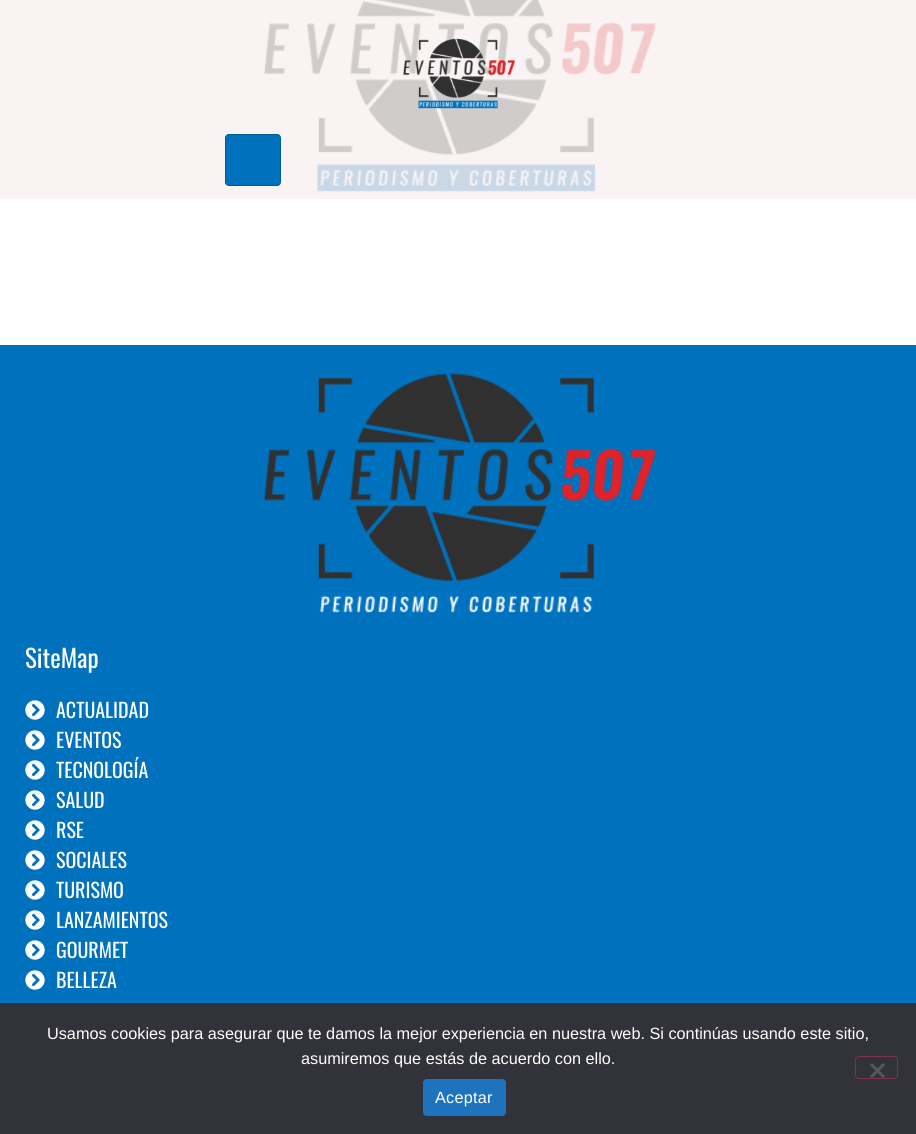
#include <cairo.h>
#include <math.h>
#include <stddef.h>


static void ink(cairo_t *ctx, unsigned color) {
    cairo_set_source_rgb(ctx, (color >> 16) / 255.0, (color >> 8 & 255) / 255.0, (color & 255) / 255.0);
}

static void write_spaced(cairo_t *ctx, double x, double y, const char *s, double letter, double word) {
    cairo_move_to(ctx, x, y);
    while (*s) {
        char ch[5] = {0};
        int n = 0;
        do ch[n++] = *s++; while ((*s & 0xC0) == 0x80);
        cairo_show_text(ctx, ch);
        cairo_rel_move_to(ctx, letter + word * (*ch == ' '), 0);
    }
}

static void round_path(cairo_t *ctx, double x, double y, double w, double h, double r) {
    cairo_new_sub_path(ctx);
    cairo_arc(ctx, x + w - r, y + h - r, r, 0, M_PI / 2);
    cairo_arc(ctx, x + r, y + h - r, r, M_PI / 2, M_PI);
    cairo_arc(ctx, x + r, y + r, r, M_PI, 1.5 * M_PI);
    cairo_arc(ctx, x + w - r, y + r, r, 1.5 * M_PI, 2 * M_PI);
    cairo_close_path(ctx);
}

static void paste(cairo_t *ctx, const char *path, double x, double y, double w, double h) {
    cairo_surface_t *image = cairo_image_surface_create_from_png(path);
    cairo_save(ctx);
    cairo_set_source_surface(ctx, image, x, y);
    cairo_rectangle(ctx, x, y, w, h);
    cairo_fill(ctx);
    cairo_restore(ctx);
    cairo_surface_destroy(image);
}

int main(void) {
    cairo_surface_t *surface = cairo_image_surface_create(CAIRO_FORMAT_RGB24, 916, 1134);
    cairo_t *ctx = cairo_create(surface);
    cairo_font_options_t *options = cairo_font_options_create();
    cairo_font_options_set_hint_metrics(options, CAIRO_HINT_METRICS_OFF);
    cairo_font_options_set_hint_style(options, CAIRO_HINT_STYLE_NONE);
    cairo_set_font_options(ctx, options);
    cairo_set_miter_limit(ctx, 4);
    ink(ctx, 0xFFFFFF);
    cairo_paint(ctx);
    ink(ctx, 0xF9F3F3);
    cairo_rectangle(ctx, 0, 0, 916, 199);
    cairo_fill(ctx);
    paste(ctx, "media/1.png", 263, 0, 393, 193);
    paste(ctx, "media/2.png", 402, 38, 113, 71);
    ink(ctx, 0x0071BC);
    round_path(ctx, 225, 134, 56, 52, 4);
    cairo_fill(ctx);
    round_path(ctx, 225.5, 134.5, 55, 51, 3.5);
    cairo_set_source_rgba(ctx, 0, 0, 0, 0.2);
    cairo_set_line_width(ctx, 1);
    cairo_stroke(ctx);
    ink(ctx, 0x0071BC);
    cairo_rectangle(ctx, 0, 345, 916, 658);
    cairo_fill(ctx);
    paste(ctx, "media/3.png", 263, 373, 393, 240);
    cairo_select_font_face(ctx, "Oswald", CAIRO_FONT_SLANT_NORMAL, CAIRO_FONT_WEIGHT_NORMAL);
    cairo_set_font_size(ctx, 25);
    ink(ctx, 0xFFFFFF);
    cairo_move_to(ctx, 25, 668);
    cairo_show_text(ctx, "SiteMap");
    paste(ctx, "media/4.png", 25, 700, 20, 20);
    cairo_set_font_size(ctx, 20);
    cairo_move_to(ctx, 56, 718);
    cairo_show_text(ctx, "ACTUALIDAD");
    paste(ctx, "media/4.png", 25, 730, 20, 20);
    cairo_move_to(ctx, 56, 748);
    cairo_show_text(ctx, "EVENTOS");
    paste(ctx, "media/4.png", 25, 760, 20, 20);
    cairo_move_to(ctx, 56, 778);
    cairo_show_text(ctx, "TECNOLOGÍA");
    paste(ctx, "media/4.png", 25, 790, 20, 20);
    cairo_move_to(ctx, 56, 808);
    cairo_show_text(ctx, "SALUD");
    paste(ctx, "media/4.png", 25, 820, 20, 20);
    cairo_move_to(ctx, 56, 838);
    cairo_show_text(ctx, "RSE");
    paste(ctx, "media/4.png", 25, 850, 20, 20);
    cairo_move_to(ctx, 56, 868);
    cairo_show_text(ctx, "SOCIALES");
    paste(ctx, "media/4.png", 25, 880, 20, 20);
    cairo_move_to(ctx, 56, 898);
    cairo_show_text(ctx, "TURISMO");
    paste(ctx, "media/4.png", 25, 910, 20, 20);
    cairo_move_to(ctx, 56, 928);
    cairo_show_text(ctx, "LANZAMIENTOS");
    paste(ctx, "media/4.png", 25, 940, 20, 20);
    cairo_move_to(ctx, 56, 958);
    cairo_show_text(ctx, "GOURMET");
    paste(ctx, "media/4.png", 25, 970, 20, 20);
    cairo_move_to(ctx, 56, 988);
    cairo_show_text(ctx, "BELLEZA");
    ink(ctx, 0x32323A);
    cairo_rectangle(ctx, 0, 1003, 916, 131);
    cairo_fill(ctx);
    cairo_select_font_face(ctx, "Liberation Sans", CAIRO_FONT_SLANT_NORMAL, CAIRO_FONT_WEIGHT_NORMAL);
    cairo_set_font_size(ctx, 16.25);
    ink(ctx, 0xFFFFFF);
    cairo_move_to(ctx, 47, 1039);
    cairo_show_text(ctx, "Usamos cookies para asegurar que te damos la mejor experiencia en nuestra web. Si continúas usando este sitio,");
    cairo_move_to(ctx, 301, 1064);
    cairo_show_text(ctx, "asumiremos que estás de acuerdo con ello.");
    round_path(ctx, 855.5, 1056.5, 42, 22, 3.5);
    ink(ctx, 0x7F3350);
    cairo_stroke(ctx);
    ink(ctx, 0x59595D);
    cairo_new_path(ctx);
    cairo_move_to(ctx, 883, 1063);
    cairo_line_to(ctx, 885, 1065);
    cairo_line_to(ctx, 872, 1078);
    cairo_line_to(ctx, 870, 1076.5);
    cairo_close_path(ctx);
    cairo_fill(ctx);
    cairo_new_path(ctx);
    cairo_move_to(ctx, 870, 1065);
    cairo_line_to(ctx, 872, 1063);
    cairo_line_to(ctx, 885, 1076.5);
    cairo_line_to(ctx, 883, 1078);
    cairo_close_path(ctx);
    cairo_fill(ctx);
    ink(ctx, 0x1E73BE);
    round_path(ctx, 423, 1079, 83, 37, 4);
    cairo_fill(ctx);
    ink(ctx, 0xFFFFFF);
    write_spaced(ctx, 435, 1103, "Aceptar", 0.25, 0);
    cairo_surface_write_to_png(surface, "image.png");
    cairo_font_options_destroy(options);
    cairo_destroy(ctx);
    cairo_surface_destroy(surface);
    return 0;
}
